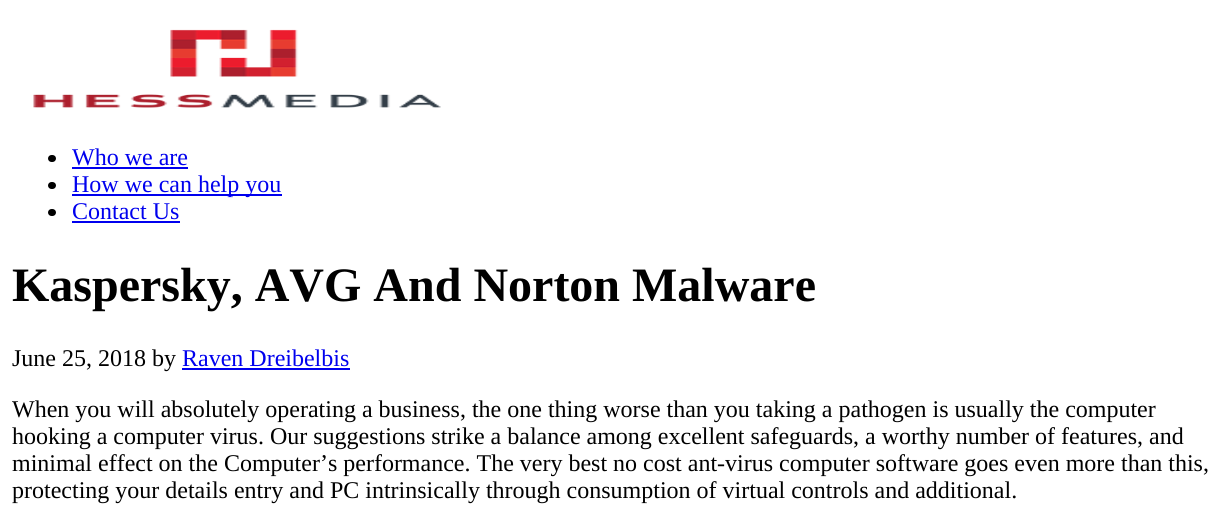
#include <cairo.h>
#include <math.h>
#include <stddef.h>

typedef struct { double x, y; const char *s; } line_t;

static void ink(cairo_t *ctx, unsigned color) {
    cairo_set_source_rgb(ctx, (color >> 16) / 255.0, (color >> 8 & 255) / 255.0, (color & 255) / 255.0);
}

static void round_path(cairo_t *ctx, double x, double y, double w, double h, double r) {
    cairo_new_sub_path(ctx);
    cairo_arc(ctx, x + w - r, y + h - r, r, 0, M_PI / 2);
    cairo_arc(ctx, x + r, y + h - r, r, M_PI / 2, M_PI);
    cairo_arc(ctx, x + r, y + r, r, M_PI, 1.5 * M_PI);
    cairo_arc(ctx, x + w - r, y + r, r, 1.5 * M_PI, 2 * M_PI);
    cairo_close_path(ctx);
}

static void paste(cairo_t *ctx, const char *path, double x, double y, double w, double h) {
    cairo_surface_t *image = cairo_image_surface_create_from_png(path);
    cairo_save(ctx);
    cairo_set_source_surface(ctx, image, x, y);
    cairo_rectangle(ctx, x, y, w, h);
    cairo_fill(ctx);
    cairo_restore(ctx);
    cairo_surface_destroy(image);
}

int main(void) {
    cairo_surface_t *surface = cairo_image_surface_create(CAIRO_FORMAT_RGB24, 1228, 513);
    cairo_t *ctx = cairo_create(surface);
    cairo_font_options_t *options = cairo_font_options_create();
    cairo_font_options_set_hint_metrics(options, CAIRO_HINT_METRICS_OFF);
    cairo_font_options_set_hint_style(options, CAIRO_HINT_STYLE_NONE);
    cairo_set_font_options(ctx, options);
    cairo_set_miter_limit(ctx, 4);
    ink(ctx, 0xFFFFFF);
    cairo_paint(ctx);
    paste(ctx, "media/1.png", 33, 29, 408, 79);
    ink(ctx, 0x000000);
    round_path(ctx, 48, 155, 8, 7, 3.5);
    cairo_fill(ctx);
    cairo_select_font_face(ctx, "Liberation Serif", CAIRO_FONT_SLANT_NORMAL, CAIRO_FONT_WEIGHT_NORMAL);
    cairo_set_font_size(ctx, 24);
    ink(ctx, 0x0000EE);
    cairo_move_to(ctx, 72, 165);
    cairo_show_text(ctx, "Who we are");
    cairo_rectangle(ctx, 72, 167, 116, 2);
    cairo_fill(ctx);
    ink(ctx, 0x000000);
    round_path(ctx, 48, 182, 8, 7, 3.5);
    cairo_fill(ctx);
    ink(ctx, 0x0000EE);
    cairo_rectangle(ctx, 72, 194, 210, 2);
    cairo_fill(ctx);
    cairo_move_to(ctx, 72, 192);
    cairo_show_text(ctx, "How we can help you");
    ink(ctx, 0x000000);
    round_path(ctx, 48, 209, 8, 7, 3.5);
    cairo_fill(ctx);
    ink(ctx, 0x0000EE);
    cairo_move_to(ctx, 72, 219);
    cairo_show_text(ctx, "Contact Us");
    cairo_rectangle(ctx, 72, 221, 108, 2);
    cairo_fill(ctx);
    cairo_select_font_face(ctx, "Liberation Serif", CAIRO_FONT_SLANT_NORMAL, CAIRO_FONT_WEIGHT_BOLD);
    cairo_set_font_size(ctx, 48);
    ink(ctx, 0x000000);
    cairo_move_to(ctx, 12, 301);
    cairo_show_text(ctx, "Kaspersky, AVG And Norton Malware");
    cairo_select_font_face(ctx, "Liberation Serif", CAIRO_FONT_SLANT_NORMAL, CAIRO_FONT_WEIGHT_NORMAL);
    cairo_set_font_size(ctx, 24);
    cairo_move_to(ctx, 12, 366);
    cairo_show_text(ctx, "June 25, 2018 by");
    ink(ctx, 0x0000EE);
    cairo_move_to(ctx, 182, 366);
    cairo_show_text(ctx, "Raven Dreibelbis");
    cairo_rectangle(ctx, 182, 368, 168, 2);
    cairo_fill(ctx);
    ink(ctx, 0x000000);
    {
        static const line_t items[] = {
            {12, 417, "When you will absolutely operating a business, the one thing worse than you taking a pathogen is usually the computer"},
            {12, 444, "hooking a computer virus. Our suggestions strike a balance among excellent safeguards, a worthy number of features, and"},
            {12, 471, "minimal effect on the Computer’s performance. The very best no cost ant-virus computer software goes even more than this,"},
            {12, 498, "protecting your details entry and PC intrinsically through consumption of virtual controls and additional."},
        };
        for (size_t i = 0; i < sizeof items / sizeof *items; i++) {
            cairo_move_to(ctx, items[i].x, items[i].y);
            cairo_show_text(ctx, items[i].s);
        }
    }
    cairo_surface_write_to_png(surface, "image.png");
    cairo_font_options_destroy(options);
    cairo_destroy(ctx);
    cairo_surface_destroy(surface);
    return 0;
}
